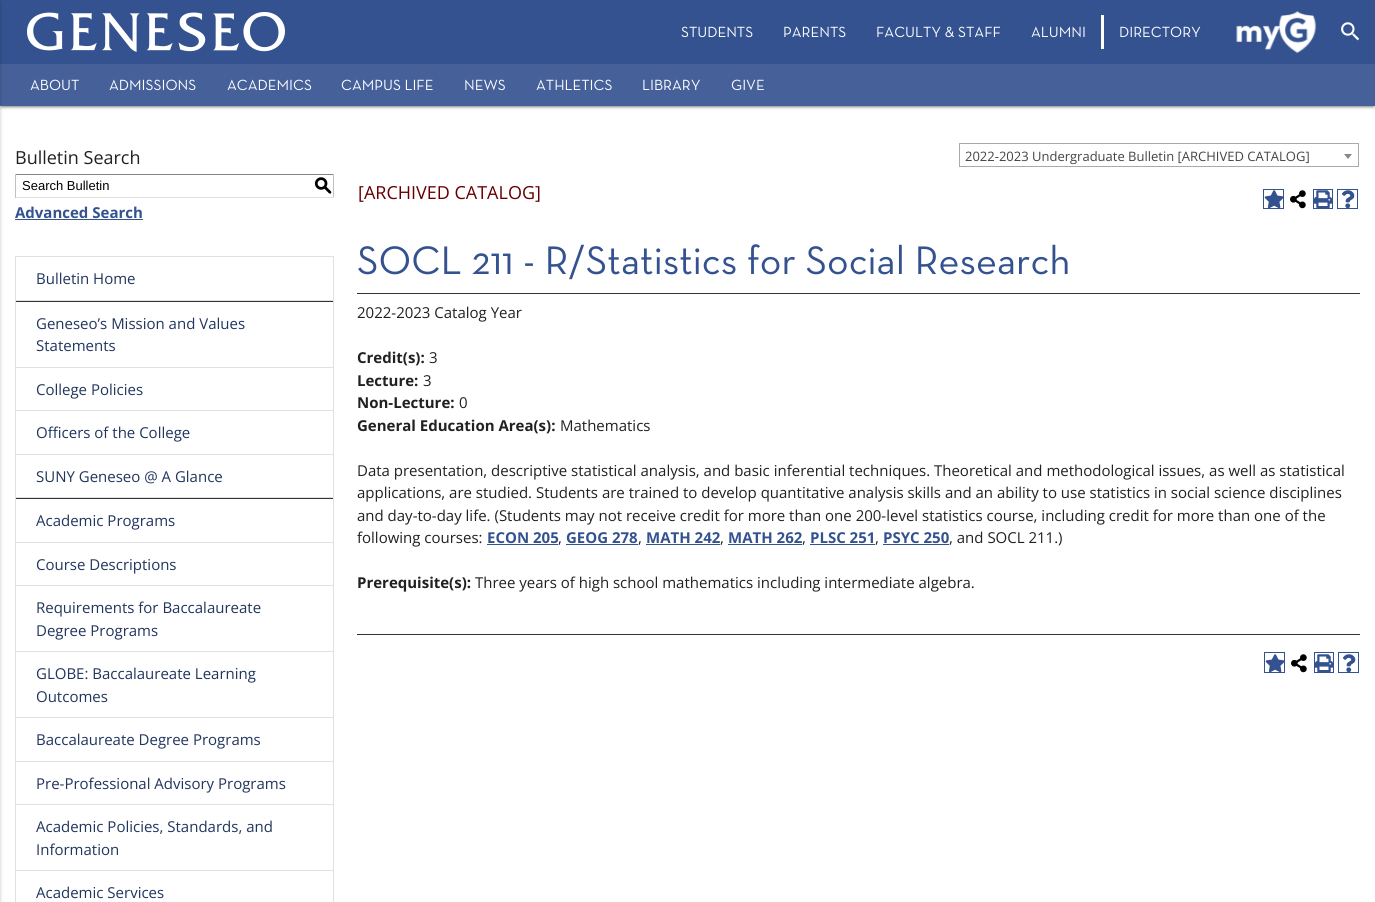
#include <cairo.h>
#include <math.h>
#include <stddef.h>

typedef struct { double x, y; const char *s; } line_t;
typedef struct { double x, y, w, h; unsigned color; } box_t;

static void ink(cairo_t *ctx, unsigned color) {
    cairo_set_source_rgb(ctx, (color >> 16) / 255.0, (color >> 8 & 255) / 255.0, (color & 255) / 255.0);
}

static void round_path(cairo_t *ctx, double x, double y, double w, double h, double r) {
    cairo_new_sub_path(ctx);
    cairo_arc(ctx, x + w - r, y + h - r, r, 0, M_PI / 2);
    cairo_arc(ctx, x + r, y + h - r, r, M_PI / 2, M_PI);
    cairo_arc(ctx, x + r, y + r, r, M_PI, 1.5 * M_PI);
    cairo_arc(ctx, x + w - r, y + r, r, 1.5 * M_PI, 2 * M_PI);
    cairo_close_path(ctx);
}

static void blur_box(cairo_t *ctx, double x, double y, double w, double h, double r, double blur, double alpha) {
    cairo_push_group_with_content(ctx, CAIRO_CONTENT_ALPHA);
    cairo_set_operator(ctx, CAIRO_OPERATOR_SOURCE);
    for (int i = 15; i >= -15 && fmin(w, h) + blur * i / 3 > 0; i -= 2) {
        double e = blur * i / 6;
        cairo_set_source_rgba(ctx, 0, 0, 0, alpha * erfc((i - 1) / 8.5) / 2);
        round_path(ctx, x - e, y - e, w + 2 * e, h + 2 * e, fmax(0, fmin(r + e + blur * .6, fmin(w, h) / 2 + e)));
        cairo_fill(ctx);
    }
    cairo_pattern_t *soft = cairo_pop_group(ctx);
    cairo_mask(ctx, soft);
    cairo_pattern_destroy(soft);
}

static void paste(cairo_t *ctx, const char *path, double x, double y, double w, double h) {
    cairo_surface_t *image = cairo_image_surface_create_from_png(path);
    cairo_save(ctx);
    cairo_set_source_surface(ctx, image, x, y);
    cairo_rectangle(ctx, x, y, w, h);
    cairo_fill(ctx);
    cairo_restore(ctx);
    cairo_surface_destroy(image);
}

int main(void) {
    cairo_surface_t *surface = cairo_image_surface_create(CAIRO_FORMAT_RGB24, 1375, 902);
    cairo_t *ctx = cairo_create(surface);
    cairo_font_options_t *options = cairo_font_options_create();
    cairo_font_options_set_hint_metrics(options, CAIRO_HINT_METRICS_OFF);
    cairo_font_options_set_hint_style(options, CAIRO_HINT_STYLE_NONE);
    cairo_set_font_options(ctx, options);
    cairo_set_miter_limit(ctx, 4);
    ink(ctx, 0xFFFFFF);
    cairo_paint(ctx);
    ink(ctx, 0x000000);
    blur_box(ctx, 0, 65, 1375, 42, 0, 2.5, 0.12);
    blur_box(ctx, 0, 66, 1375, 42, 0, 1, 0.14);
    ink(ctx, 0x345290);
    cairo_rectangle(ctx, 0, 0, 1375, 64);
    cairo_fill(ctx);
    ink(ctx, 0x000000);
    blur_box(ctx, 2, 69, 1371, 38, 0, 0.5, 0.2);
    ink(ctx, 0x46619A);
    cairo_rectangle(ctx, 0, 64, 1375, 42);
    cairo_fill(ctx);
    ink(ctx, 0x000000);
    blur_box(ctx, -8, 1, 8, 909, 0, 2.5, 0.12);
    blur_box(ctx, -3, 2, 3, 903, 0, 1, 0.14);
    paste(ctx, "media/1.png", 27, 12, 258, 40);
    cairo_select_font_face(ctx, "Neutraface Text", CAIRO_FONT_SLANT_NORMAL, CAIRO_FONT_WEIGHT_NORMAL);
    cairo_set_font_size(ctx, 15);
    ink(ctx, 0xFFFFFF);
    {
        static const line_t items[] = {
            {681, 37, "STUDENTS"},
            {783, 37, "PARENTS"},
            {876, 37, "FACULTY & STAFF"},
            {1031, 37, "ALUMNI"},
        };
        for (size_t i = 0; i < sizeof items / sizeof *items; i++) {
            cairo_move_to(ctx, items[i].x, items[i].y);
            cairo_show_text(ctx, items[i].s);
        }
    }
    cairo_rectangle(ctx, 1101, 15, 3, 34);
    cairo_fill(ctx);
    cairo_move_to(ctx, 1119, 37);
    cairo_show_text(ctx, "DIRECTORY");
    paste(ctx, "media/2.png", 1236, 11, 81, 42);
    paste(ctx, "media/3.png", 1341, 22, 19, 19);
    {
        static const line_t items[] = {
            {30, 90, "ABOUT"},
            {109, 90, "ADMISSIONS"},
            {227, 90, "ACADEMICS"},
            {341, 90, "CAMPUS LIFE"},
            {464, 90, "NEWS"},
            {536, 90, "ATHLETICS"},
            {642, 90, "LIBRARY"},
            {731, 90, "GIVE"},
        };
        for (size_t i = 0; i < sizeof items / sizeof *items; i++) {
            cairo_move_to(ctx, items[i].x, items[i].y);
            cairo_show_text(ctx, items[i].s);
        }
    }
    cairo_select_font_face(ctx, "Open Sans", CAIRO_FONT_SLANT_NORMAL, CAIRO_FONT_WEIGHT_NORMAL);
    cairo_set_font_size(ctx, 18);
    ink(ctx, 0x212121);
    cairo_move_to(ctx, 15, 164);
    cairo_show_text(ctx, "Bulletin Search");
    {
        static const box_t items[] = {
            {15, 174, 319, 1, 0x848484},
            {333, 174, 1, 24, 0xC1C1C1},
            {15, 197, 319, 1, 0xE1E1E1},
            {15, 174, 1, 24, 0xC1C1C1},
        };
        for (size_t i = 0; i < sizeof items / sizeof *items; i++) {
            ink(ctx, items[i].color);
            cairo_rectangle(ctx, items[i].x, items[i].y, items[i].w, items[i].h);
            cairo_fill(ctx);
        }
    }
    cairo_select_font_face(ctx, "Liberation Sans", CAIRO_FONT_SLANT_NORMAL, CAIRO_FONT_WEIGHT_NORMAL);
    cairo_set_font_size(ctx, 13);
    ink(ctx, 0x000000);
    cairo_move_to(ctx, 22, 190);
    cairo_show_text(ctx, "Search Bulletin");
    cairo_select_font_face(ctx, "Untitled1 Medium", CAIRO_FONT_SLANT_NORMAL, CAIRO_FONT_WEIGHT_NORMAL);
    cairo_set_font_size(ctx, 18);
    cairo_move_to(ctx, 314, 191);
    cairo_show_text(ctx, "S");
    cairo_select_font_face(ctx, "Open Sans", CAIRO_FONT_SLANT_NORMAL, CAIRO_FONT_WEIGHT_BOLD);
    cairo_set_font_size(ctx, 15);
    ink(ctx, 0x345290);
    cairo_move_to(ctx, 15, 218);
    cairo_show_text(ctx, "Advanced Search");
    cairo_rectangle(ctx, 15, 219, 128, 1);
    cairo_fill(ctx);
    cairo_rectangle(ctx, 15.5, 256.5, 318, 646);
    ink(ctx, 0xE0E0E0);
    cairo_set_line_width(ctx, 1);
    cairo_stroke(ctx);
    cairo_rectangle(ctx, 16, 300, 317, 1);
    cairo_fill(ctx);
    cairo_select_font_face(ctx, "Open Sans", CAIRO_FONT_SLANT_NORMAL, CAIRO_FONT_WEIGHT_NORMAL);
    ink(ctx, 0x21355D);
    cairo_move_to(ctx, 36, 284);
    cairo_show_text(ctx, "Bulletin Home");
    ink(ctx, 0x333333);
    cairo_rectangle(ctx, 16, 301, 317, 1);
    cairo_fill(ctx);
    ink(ctx, 0xE0E0E0);
    cairo_rectangle(ctx, 16, 367, 317, 1);
    cairo_fill(ctx);
    ink(ctx, 0x21355D);
    cairo_move_to(ctx, 36, 329);
    cairo_show_text(ctx, "Geneseo’s Mission and Values");
    cairo_move_to(ctx, 36, 351);
    cairo_show_text(ctx, "Statements");
    ink(ctx, 0xE0E0E0);
    cairo_rectangle(ctx, 16, 410, 317, 1);
    cairo_fill(ctx);
    ink(ctx, 0x21355D);
    cairo_move_to(ctx, 36, 395);
    cairo_show_text(ctx, "College Policies");
    ink(ctx, 0xE0E0E0);
    cairo_rectangle(ctx, 16, 454, 317, 1);
    cairo_fill(ctx);
    ink(ctx, 0x21355D);
    cairo_move_to(ctx, 36, 438);
    cairo_show_text(ctx, "Officers of the College");
    ink(ctx, 0xE0E0E0);
    cairo_rectangle(ctx, 16, 497, 317, 1);
    cairo_fill(ctx);
    ink(ctx, 0x21355D);
    cairo_move_to(ctx, 36, 482);
    cairo_show_text(ctx, "SUNY Geneseo @ A Glance");
    ink(ctx, 0x333333);
    cairo_rectangle(ctx, 16, 498, 317, 1);
    cairo_fill(ctx);
    ink(ctx, 0xE0E0E0);
    cairo_rectangle(ctx, 16, 542, 317, 1);
    cairo_fill(ctx);
    ink(ctx, 0x21355D);
    cairo_move_to(ctx, 36, 526);
    cairo_show_text(ctx, "Academic Programs");
    ink(ctx, 0xE0E0E0);
    cairo_rectangle(ctx, 16, 585, 317, 1);
    cairo_fill(ctx);
    ink(ctx, 0x21355D);
    cairo_move_to(ctx, 36, 570);
    cairo_show_text(ctx, "Course Descriptions");
    ink(ctx, 0xE0E0E0);
    cairo_rectangle(ctx, 16, 651, 317, 1);
    cairo_fill(ctx);
    ink(ctx, 0x21355D);
    cairo_move_to(ctx, 36, 613);
    cairo_show_text(ctx, "Requirements for Baccalaureate");
    cairo_move_to(ctx, 36, 636);
    cairo_show_text(ctx, "Degree Programs");
    ink(ctx, 0xE0E0E0);
    cairo_rectangle(ctx, 16, 717, 317, 1);
    cairo_fill(ctx);
    ink(ctx, 0x21355D);
    cairo_move_to(ctx, 36, 679);
    cairo_show_text(ctx, "GLOBE: Baccalaureate Learning");
    cairo_move_to(ctx, 36, 702);
    cairo_show_text(ctx, "Outcomes");
    ink(ctx, 0xE0E0E0);
    cairo_rectangle(ctx, 16, 761, 317, 1);
    cairo_fill(ctx);
    ink(ctx, 0x21355D);
    cairo_move_to(ctx, 36, 745);
    cairo_show_text(ctx, "Baccalaureate Degree Programs");
    ink(ctx, 0xE0E0E0);
    cairo_rectangle(ctx, 16, 804, 317, 1);
    cairo_fill(ctx);
    ink(ctx, 0x21355D);
    cairo_move_to(ctx, 36, 789);
    cairo_show_text(ctx, "Pre-Professional Advisory Programs");
    ink(ctx, 0xE0E0E0);
    cairo_rectangle(ctx, 16, 870, 317, 1);
    cairo_fill(ctx);
    ink(ctx, 0x21355D);
    {
        static const line_t items[] = {
            {36, 832, "Academic Policies, Standards, and"},
            {36, 855, "Information"},
            {36, 898, "Academic Services"},
        };
        for (size_t i = 0; i < sizeof items / sizeof *items; i++) {
            cairo_move_to(ctx, items[i].x, items[i].y);
            cairo_show_text(ctx, items[i].s);
        }
    }
    cairo_set_font_size(ctx, 18);
    ink(ctx, 0x660000);
    cairo_move_to(ctx, 358, 199);
    cairo_show_text(ctx, "[ARCHIVED CATALOG]");
    cairo_rectangle(ctx, 1263.5, 189.5, 20, 19);
    ink(ctx, 0x345290);
    cairo_stroke(ctx);
    paste(ctx, "media/4.png", 1264, 190, 19, 18);
    paste(ctx, "media/5.png", 1290, 190, 16, 19);
    cairo_rectangle(ctx, 1313.5, 189.5, 19, 19);
    cairo_stroke(ctx);
    paste(ctx, "media/6.png", 1314, 190, 18, 18);
    cairo_rectangle(ctx, 1337.5, 189.5, 20, 19);
    cairo_stroke(ctx);
    paste(ctx, "media/7.png", 1342, 190, 13, 18);
    cairo_select_font_face(ctx, "Neutraface Text", CAIRO_FONT_SLANT_NORMAL, CAIRO_FONT_WEIGHT_NORMAL);
    cairo_set_font_size(ctx, 40.5);
    cairo_move_to(ctx, 357, 274);
    cairo_show_text(ctx, "SOCL 211 - R/Statistics for Social Research");
    ink(ctx, 0x333333);
    cairo_rectangle(ctx, 357, 293, 1003, 1);
    cairo_fill(ctx);
    cairo_select_font_face(ctx, "Open Sans", CAIRO_FONT_SLANT_NORMAL, CAIRO_FONT_WEIGHT_NORMAL);
    cairo_set_font_size(ctx, 15);
    ink(ctx, 0x212121);
    cairo_move_to(ctx, 357, 318);
    cairo_show_text(ctx, "2022-2023 Catalog Year");
    cairo_select_font_face(ctx, "Open Sans", CAIRO_FONT_SLANT_NORMAL, CAIRO_FONT_WEIGHT_BOLD);
    cairo_move_to(ctx, 357, 363);
    cairo_show_text(ctx, "Credit(s):");
    cairo_select_font_face(ctx, "Open Sans", CAIRO_FONT_SLANT_NORMAL, CAIRO_FONT_WEIGHT_NORMAL);
    cairo_move_to(ctx, 429, 363);
    cairo_show_text(ctx, "3");
    cairo_select_font_face(ctx, "Open Sans", CAIRO_FONT_SLANT_NORMAL, CAIRO_FONT_WEIGHT_BOLD);
    cairo_move_to(ctx, 357, 386);
    cairo_show_text(ctx, "Lecture:");
    cairo_select_font_face(ctx, "Open Sans", CAIRO_FONT_SLANT_NORMAL, CAIRO_FONT_WEIGHT_NORMAL);
    cairo_move_to(ctx, 423, 386);
    cairo_show_text(ctx, "3");
    cairo_select_font_face(ctx, "Open Sans", CAIRO_FONT_SLANT_NORMAL, CAIRO_FONT_WEIGHT_BOLD);
    cairo_move_to(ctx, 357, 408);
    cairo_show_text(ctx, "Non-Lecture:");
    cairo_select_font_face(ctx, "Open Sans", CAIRO_FONT_SLANT_NORMAL, CAIRO_FONT_WEIGHT_NORMAL);
    cairo_move_to(ctx, 459, 408);
    cairo_show_text(ctx, "0");
    cairo_select_font_face(ctx, "Open Sans", CAIRO_FONT_SLANT_NORMAL, CAIRO_FONT_WEIGHT_BOLD);
    cairo_move_to(ctx, 357, 431);
    cairo_show_text(ctx, "General Education Area(s):");
    cairo_select_font_face(ctx, "Open Sans", CAIRO_FONT_SLANT_NORMAL, CAIRO_FONT_WEIGHT_NORMAL);
    {
        static const line_t items[] = {
            {560, 431, "Mathematics"},
            {357, 476, "Data presentation, descriptive statistical analysis, and basic inferential techniques. Theoretical and methodological issues, as well as statistical"},
            {357, 498, "applications, are studied. Students are trained to develop quantitative analysis skills and an ability to use statistics in social science disciplines"},
            {357, 521, "and day-to-day life. (Students may not receive credit for more than one 200-level statistics course, including credit for more than one of the"},
            {357, 543, "following courses:"},
        };
        for (size_t i = 0; i < sizeof items / sizeof *items; i++) {
            cairo_move_to(ctx, items[i].x, items[i].y);
            cairo_show_text(ctx, items[i].s);
        }
    }
    cairo_select_font_face(ctx, "Open Sans", CAIRO_FONT_SLANT_NORMAL, CAIRO_FONT_WEIGHT_BOLD);
    ink(ctx, 0x345290);
    cairo_move_to(ctx, 487, 543);
    cairo_show_text(ctx, "ECON 205");
    cairo_rectangle(ctx, 487, 544, 71, 1);
    cairo_fill(ctx);
    cairo_select_font_face(ctx, "Open Sans", CAIRO_FONT_SLANT_NORMAL, CAIRO_FONT_WEIGHT_NORMAL);
    ink(ctx, 0x212121);
    cairo_move_to(ctx, 558, 543);
    cairo_show_text(ctx, ",");
    cairo_select_font_face(ctx, "Open Sans", CAIRO_FONT_SLANT_NORMAL, CAIRO_FONT_WEIGHT_BOLD);
    ink(ctx, 0x345290);
    cairo_move_to(ctx, 566, 543);
    cairo_show_text(ctx, "GEOG 278");
    cairo_rectangle(ctx, 566, 544, 72, 1);
    cairo_fill(ctx);
    cairo_select_font_face(ctx, "Open Sans", CAIRO_FONT_SLANT_NORMAL, CAIRO_FONT_WEIGHT_NORMAL);
    ink(ctx, 0x212121);
    cairo_move_to(ctx, 638, 543);
    cairo_show_text(ctx, ",");
    cairo_select_font_face(ctx, "Open Sans", CAIRO_FONT_SLANT_NORMAL, CAIRO_FONT_WEIGHT_BOLD);
    ink(ctx, 0x345290);
    cairo_move_to(ctx, 646, 543);
    cairo_show_text(ctx, "MATH 242");
    cairo_rectangle(ctx, 646, 544, 74, 1);
    cairo_fill(ctx);
    cairo_select_font_face(ctx, "Open Sans", CAIRO_FONT_SLANT_NORMAL, CAIRO_FONT_WEIGHT_NORMAL);
    ink(ctx, 0x212121);
    cairo_move_to(ctx, 720, 543);
    cairo_show_text(ctx, ",");
    cairo_select_font_face(ctx, "Open Sans", CAIRO_FONT_SLANT_NORMAL, CAIRO_FONT_WEIGHT_BOLD);
    ink(ctx, 0x345290);
    cairo_move_to(ctx, 728, 543);
    cairo_show_text(ctx, "MATH 262");
    cairo_rectangle(ctx, 728, 544, 74, 1);
    cairo_fill(ctx);
    cairo_select_font_face(ctx, "Open Sans", CAIRO_FONT_SLANT_NORMAL, CAIRO_FONT_WEIGHT_NORMAL);
    ink(ctx, 0x212121);
    cairo_move_to(ctx, 802, 543);
    cairo_show_text(ctx, ",");
    cairo_select_font_face(ctx, "Open Sans", CAIRO_FONT_SLANT_NORMAL, CAIRO_FONT_WEIGHT_BOLD);
    ink(ctx, 0x345290);
    cairo_move_to(ctx, 810, 543);
    cairo_show_text(ctx, "PLSC 251");
    cairo_rectangle(ctx, 810, 544, 65, 1);
    cairo_fill(ctx);
    cairo_select_font_face(ctx, "Open Sans", CAIRO_FONT_SLANT_NORMAL, CAIRO_FONT_WEIGHT_NORMAL);
    ink(ctx, 0x212121);
    cairo_move_to(ctx, 875, 543);
    cairo_show_text(ctx, ",");
    cairo_select_font_face(ctx, "Open Sans", CAIRO_FONT_SLANT_NORMAL, CAIRO_FONT_WEIGHT_BOLD);
    ink(ctx, 0x345290);
    cairo_move_to(ctx, 883, 543);
    cairo_show_text(ctx, "PSYC 250");
    cairo_rectangle(ctx, 883, 544, 66, 1);
    cairo_fill(ctx);
    cairo_select_font_face(ctx, "Open Sans", CAIRO_FONT_SLANT_NORMAL, CAIRO_FONT_WEIGHT_NORMAL);
    ink(ctx, 0x212121);
    cairo_move_to(ctx, 949, 543);
    cairo_show_text(ctx, ", and SOCL 211.)");
    cairo_select_font_face(ctx, "Open Sans", CAIRO_FONT_SLANT_NORMAL, CAIRO_FONT_WEIGHT_BOLD);
    cairo_move_to(ctx, 357, 588);
    cairo_show_text(ctx, "Prerequisite(s):");
    cairo_select_font_face(ctx, "Open Sans", CAIRO_FONT_SLANT_NORMAL, CAIRO_FONT_WEIGHT_NORMAL);
    cairo_move_to(ctx, 475, 588);
    cairo_show_text(ctx, "Three years of high school mathematics including intermediate algebra.");
    ink(ctx, 0x333333);
    cairo_rectangle(ctx, 357, 634, 1003, 1);
    cairo_fill(ctx);
    cairo_rectangle(ctx, 1264.5, 652.5, 20, 20);
    ink(ctx, 0x345290);
    cairo_stroke(ctx);
    paste(ctx, "media/4.png", 1265, 654, 19, 18);
    paste(ctx, "media/5.png", 1291, 654, 16, 19);
    cairo_rectangle(ctx, 1314.5, 652.5, 19, 20);
    cairo_stroke(ctx);
    paste(ctx, "media/6.png", 1315, 654, 18, 18);
    cairo_rectangle(ctx, 1338.5, 652.5, 20, 20);
    cairo_stroke(ctx);
    paste(ctx, "media/7.png", 1343, 654, 13, 18);
    cairo_rectangle(ctx, 959.5, 143.5, 399, 23);
    ink(ctx, 0xAAAAAA);
    cairo_stroke(ctx);
    cairo_set_font_size(ctx, 13);
    ink(ctx, 0x444444);
    cairo_move_to(ctx, 965, 161);
    cairo_show_text(ctx, "2022-2023 Undergraduate Bulletin [ARCHIVED CATALOG]");
    ink(ctx, 0x888888);
    cairo_new_path(ctx);
    cairo_move_to(ctx, 1344, 154);
    cairo_line_to(ctx, 1352, 154);
    cairo_line_to(ctx, 1348, 159);
    cairo_close_path(ctx);
    cairo_fill(ctx);
    cairo_surface_write_to_png(surface, "image.png");
    cairo_font_options_destroy(options);
    cairo_destroy(ctx);
    cairo_surface_destroy(surface);
    return 0;
}
